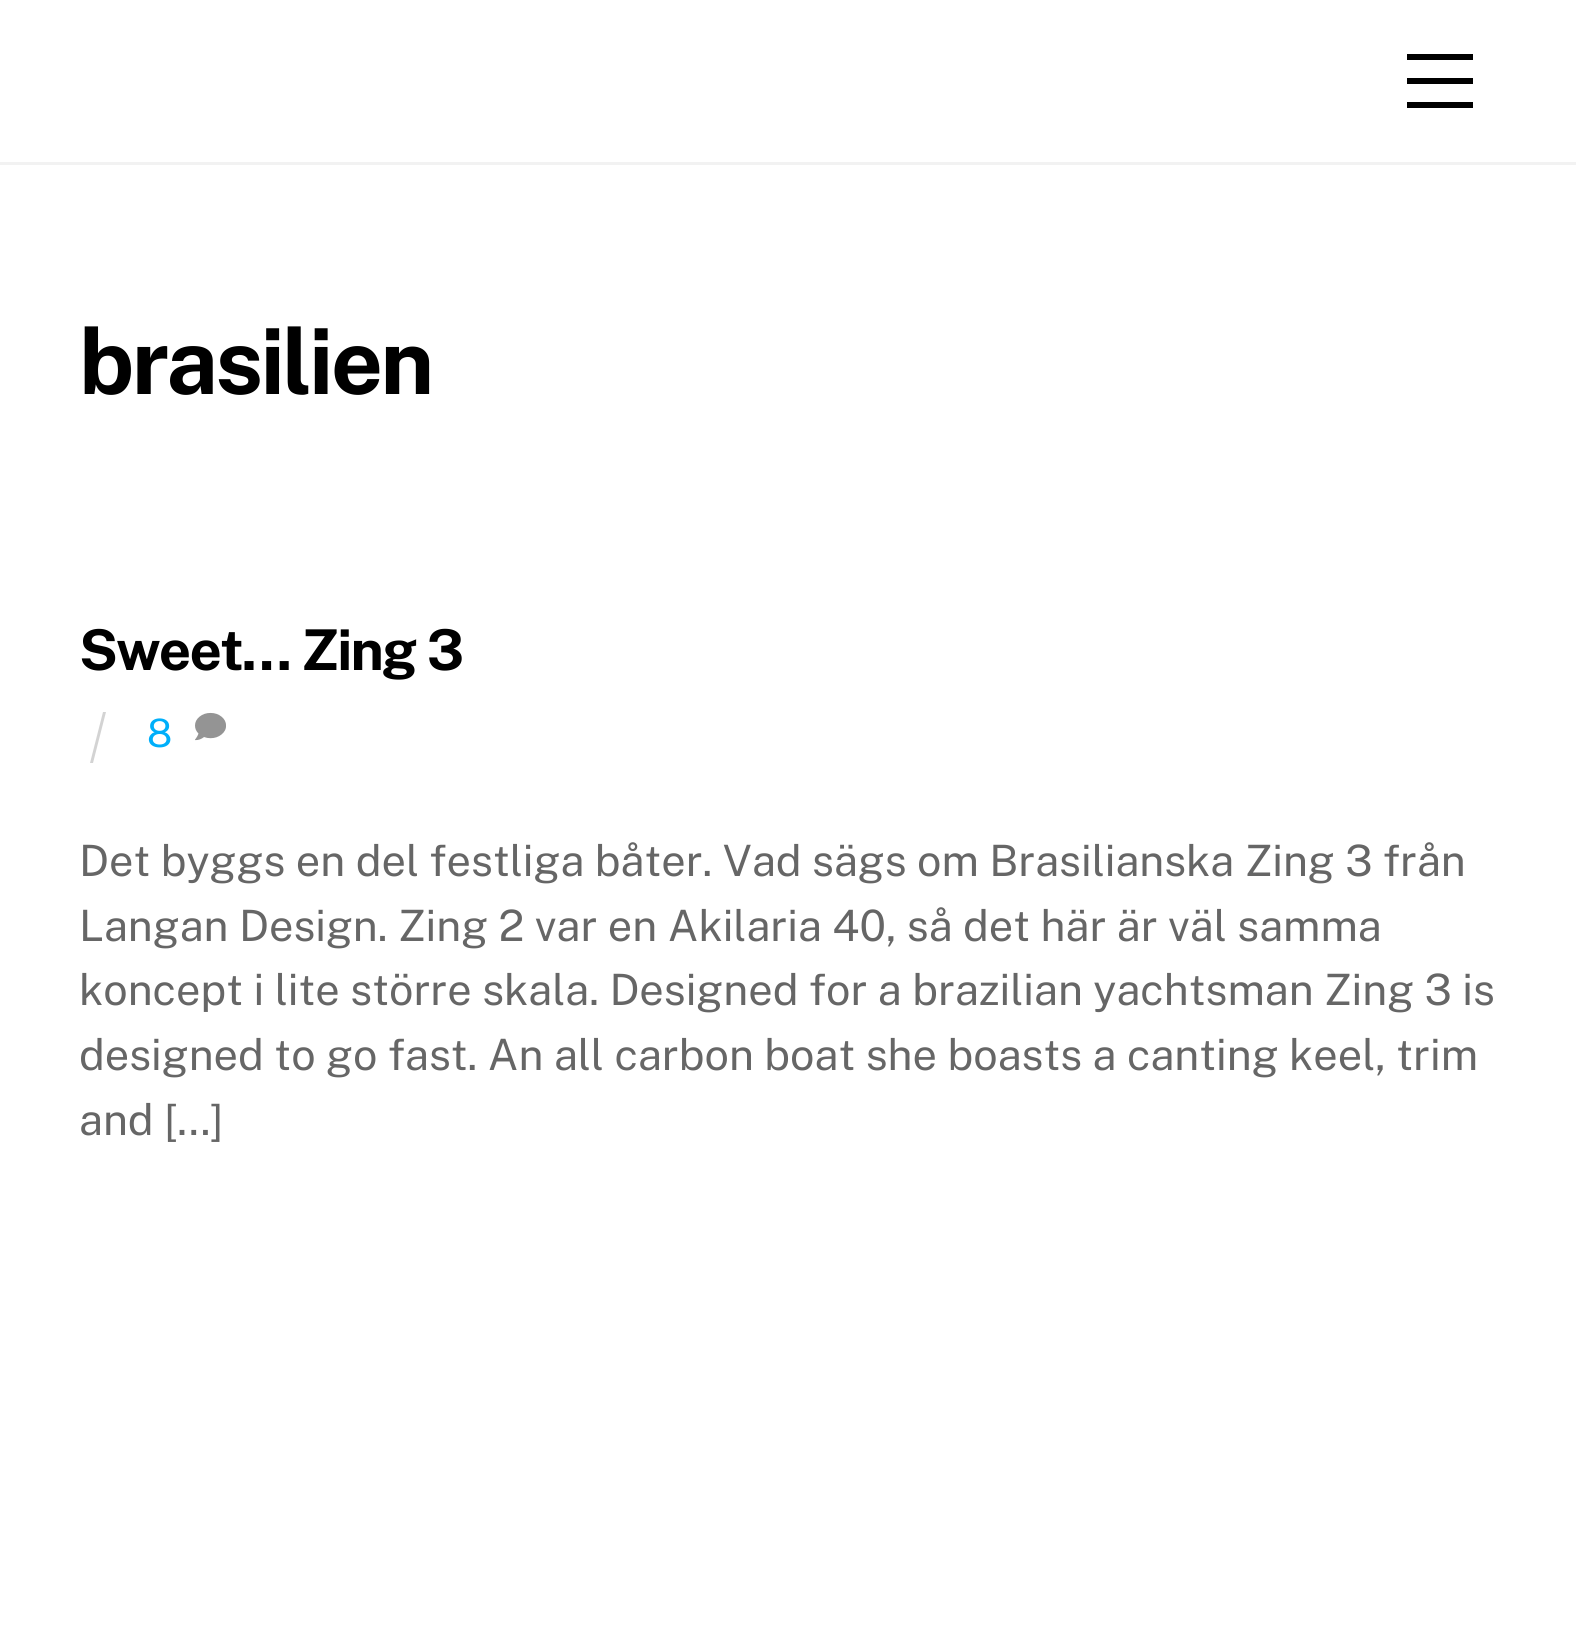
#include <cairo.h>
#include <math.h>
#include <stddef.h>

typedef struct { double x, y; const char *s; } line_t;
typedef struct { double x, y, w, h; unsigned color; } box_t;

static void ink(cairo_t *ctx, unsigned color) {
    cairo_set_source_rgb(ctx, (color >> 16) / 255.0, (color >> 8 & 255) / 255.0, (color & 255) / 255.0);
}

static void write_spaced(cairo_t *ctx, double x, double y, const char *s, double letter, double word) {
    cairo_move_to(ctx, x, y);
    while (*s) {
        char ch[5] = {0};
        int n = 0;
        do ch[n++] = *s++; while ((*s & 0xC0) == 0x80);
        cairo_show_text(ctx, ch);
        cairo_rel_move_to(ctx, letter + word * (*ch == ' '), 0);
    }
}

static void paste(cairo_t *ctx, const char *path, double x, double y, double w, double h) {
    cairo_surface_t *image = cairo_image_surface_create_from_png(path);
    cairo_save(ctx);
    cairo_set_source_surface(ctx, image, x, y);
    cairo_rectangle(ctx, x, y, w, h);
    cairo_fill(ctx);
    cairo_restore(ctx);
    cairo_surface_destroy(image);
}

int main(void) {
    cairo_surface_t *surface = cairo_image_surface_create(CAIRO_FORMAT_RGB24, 1576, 1649);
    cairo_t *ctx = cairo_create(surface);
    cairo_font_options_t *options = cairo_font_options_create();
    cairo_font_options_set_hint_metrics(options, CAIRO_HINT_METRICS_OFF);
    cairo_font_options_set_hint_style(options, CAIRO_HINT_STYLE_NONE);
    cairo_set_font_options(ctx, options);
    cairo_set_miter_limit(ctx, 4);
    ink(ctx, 0xFFFFFF);
    cairo_paint(ctx);
    {
        static const box_t items[] = {
            {0, 162, 1576, 3, 0xF2F2F2},
            {1407, 102, 66, 6, 0x000000},
            {1407, 54, 66, 6, 0x000000},
            {1407, 78, 66, 6, 0x000000},
        };
        for (size_t i = 0; i < sizeof items / sizeof *items; i++) {
            ink(ctx, items[i].color);
            cairo_rectangle(ctx, items[i].x, items[i].y, items[i].w, items[i].h);
            cairo_fill(ctx);
        }
    }
    cairo_select_font_face(ctx, "Public Sans", CAIRO_FONT_SLANT_NORMAL, CAIRO_FONT_WEIGHT_BOLD);
    cairo_set_font_size(ctx, 91);
    write_spaced(ctx, 79, 394, "brasilien", -2.75, 0);
    cairo_set_font_size(ctx, 56.25);
    write_spaced(ctx, 79, 670, "Sweet… Zing 3", -1.75, 0);
    ink(ctx, 0xD3D3D3);
    cairo_new_path(ctx);
    cairo_move_to(ctx, 103, 712);
    cairo_line_to(ctx, 106, 712);
    cairo_line_to(ctx, 93, 763);
    cairo_line_to(ctx, 90, 763);
    cairo_close_path(ctx);
    cairo_fill(ctx);
    cairo_select_font_face(ctx, "Public Sans", CAIRO_FONT_SLANT_NORMAL, CAIRO_FONT_WEIGHT_NORMAL);
    cairo_set_font_size(ctx, 39);
    ink(ctx, 0x00AFFA);
    cairo_move_to(ctx, 147, 747);
    cairo_show_text(ctx, "8");
    paste(ctx, "media/1.png", 195, 712, 31, 29);
    cairo_set_font_size(ctx, 43.2);
    ink(ctx, 0x666666);
    {
        static const line_t items[] = {
            {79, 876, "Det byggs en del festliga båter. Vad sägs om Brasilianska Zing 3 från"},
            {79, 941, "Langan Design. Zing 2 var en Akilaria 40, så det här är väl samma"},
            {79, 1005, "koncept i lite större skala. Designed for a brazilian yachtsman Zing 3 is"},
            {79, 1070, "designed to go fast. An all carbon boat she boasts a canting keel, trim"},
            {79, 1135, "and […]"},
        };
        for (size_t i = 0; i < sizeof items / sizeof *items; i++) {
            cairo_move_to(ctx, items[i].x, items[i].y);
            cairo_show_text(ctx, items[i].s);
        }
    }
    cairo_surface_write_to_png(surface, "image.png");
    cairo_font_options_destroy(options);
    cairo_destroy(ctx);
    cairo_surface_destroy(surface);
    return 0;
}
